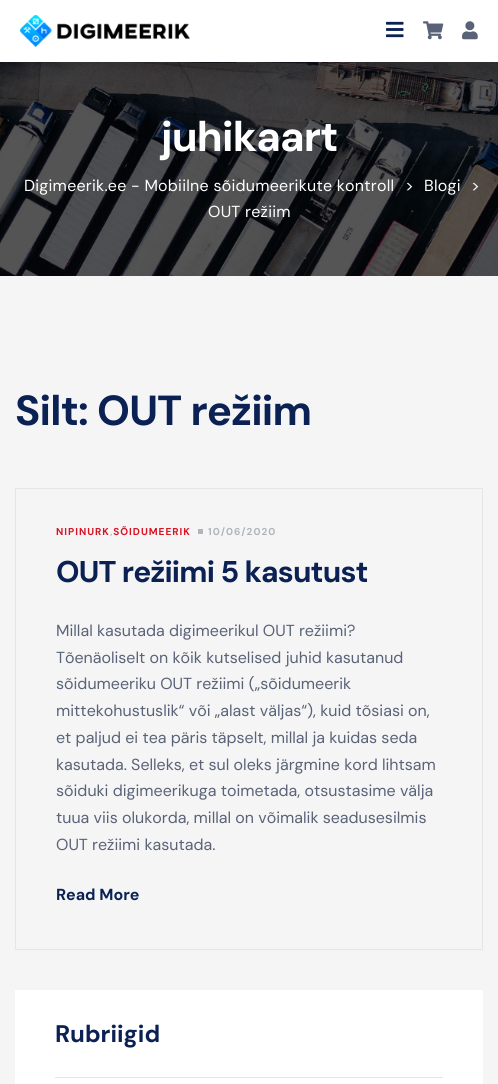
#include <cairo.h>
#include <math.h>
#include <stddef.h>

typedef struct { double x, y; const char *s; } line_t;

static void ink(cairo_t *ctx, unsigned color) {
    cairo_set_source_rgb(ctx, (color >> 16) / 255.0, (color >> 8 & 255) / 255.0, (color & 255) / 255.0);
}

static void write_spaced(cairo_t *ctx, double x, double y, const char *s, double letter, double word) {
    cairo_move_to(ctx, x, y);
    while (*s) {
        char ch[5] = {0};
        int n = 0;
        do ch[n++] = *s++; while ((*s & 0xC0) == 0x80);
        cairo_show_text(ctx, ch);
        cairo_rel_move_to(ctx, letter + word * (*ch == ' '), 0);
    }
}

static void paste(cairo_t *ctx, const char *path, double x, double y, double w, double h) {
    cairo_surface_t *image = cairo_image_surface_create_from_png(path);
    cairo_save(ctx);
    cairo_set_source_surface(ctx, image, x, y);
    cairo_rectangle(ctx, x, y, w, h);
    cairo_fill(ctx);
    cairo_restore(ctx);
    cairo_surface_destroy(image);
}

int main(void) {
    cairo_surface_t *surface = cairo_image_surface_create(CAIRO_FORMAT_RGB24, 498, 1084);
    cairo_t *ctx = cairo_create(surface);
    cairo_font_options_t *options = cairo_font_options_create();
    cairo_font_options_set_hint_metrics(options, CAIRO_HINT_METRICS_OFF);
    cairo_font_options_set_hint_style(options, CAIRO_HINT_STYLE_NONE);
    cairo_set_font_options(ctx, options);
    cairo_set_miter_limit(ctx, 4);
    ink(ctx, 0xF5F5F5);
    cairo_paint(ctx);
    ink(ctx, 0xFFFFFF);
    cairo_rectangle(ctx, 0, 0, 498, 62);
    cairo_fill(ctx);
    paste(ctx, "media/1.png", 20, 15, 170, 32);
    paste(ctx, "media/2.png", 386, 21, 18, 17);
    paste(ctx, "media/3.png", 423, 21, 21, 19);
    paste(ctx, "media/4.png", 462, 21, 16, 19);
    paste(ctx, "media/5.png", 0, 62, 498, 214);
    cairo_select_font_face(ctx, "DM Sans", CAIRO_FONT_SLANT_NORMAL, CAIRO_FONT_WEIGHT_BOLD);
    cairo_set_font_size(ctx, 42);
    write_spaced(ctx, 161, 151, "juhikaart", -0.8, 0);
    cairo_select_font_face(ctx, "DM Sans", CAIRO_FONT_SLANT_NORMAL, CAIRO_FONT_WEIGHT_NORMAL);
    cairo_set_font_size(ctx, 16);
    write_spaced(ctx, 24, 191, "Digimeerik.ee - Mobiilne sõidumeerikute kontroll", 0.25, 0);
    cairo_move_to(ctx, 405, 191);
    cairo_show_text(ctx, ">");
    write_spaced(ctx, 424, 191, "Blogi", 0.25, 0);
    cairo_move_to(ctx, 471, 191);
    cairo_show_text(ctx, ">");
    write_spaced(ctx, 208, 217, "OUT režiim", 0.25, 0);
    cairo_select_font_face(ctx, "DM Sans", CAIRO_FONT_SLANT_NORMAL, CAIRO_FONT_WEIGHT_BOLD);
    cairo_set_font_size(ctx, 42);
    ink(ctx, 0x0B2154);
    write_spaced(ctx, 15, 425, "Silt: OUT režiim", -0.8, 0);
    cairo_rectangle(ctx, 15.5, 488.5, 467, 461);
    ink(ctx, 0xE5E5E5);
    cairo_set_line_width(ctx, 1);
    cairo_stroke(ctx);
    cairo_set_font_size(ctx, 10);
    ink(ctx, 0xD81324);
    write_spaced(ctx, 56, 535, "NIPINURK SÕIDUMEERIK", 1, 0);
    ink(ctx, 0xAFB5BB);
    cairo_rectangle(ctx, 198, 529, 5, 5);
    cairo_fill(ctx);
    ink(ctx, 0xBCBCBC);
    write_spaced(ctx, 110, 535, ",", 1, 0);
    ink(ctx, 0xAFB5BB);
    write_spaced(ctx, 208, 535, "10/06/2020", 1, 0);
    cairo_set_font_size(ctx, 30);
    ink(ctx, 0x0B2154);
    write_spaced(ctx, 56, 582, "OUT režiimi 5 kasutust", -0.8, 0);
    cairo_select_font_face(ctx, "DM Sans", CAIRO_FONT_SLANT_NORMAL, CAIRO_FONT_WEIGHT_NORMAL);
    cairo_set_font_size(ctx, 16);
    ink(ctx, 0x596277);
    {
        static const line_t items[] = {
            {56, 636, "Millal kasutada digimeerikul OUT režiimi?"},
            {56, 663, "Tõenäoliselt on kõik kutselised juhid kasutanud"},
            {56, 689, "sõidumeeriku OUT režiimi („sõidumeerik"},
            {56, 716, "mittekohustuslik“ või „alast väljas“), kuid tõsiasi on,"},
            {56, 743, "et paljud ei tea päris täpselt, millal ja kuidas seda"},
            {56, 770, "kasutada. Selleks, et sul oleks järgmine kord lihtsam"},
            {56, 796, "sõiduki digimeerikuga toimetada, otsustasime välja"},
            {56, 823, "tuua viis olukorda, millal on võimalik seadusesilmis"},
            {56, 850, "OUT režiimi kasutada."},
        };
        for (size_t i = 0; i < sizeof items / sizeof *items; i++) {
            cairo_move_to(ctx, items[i].x, items[i].y);
            cairo_show_text(ctx, items[i].s);
        }
    }
    cairo_select_font_face(ctx, "DM Sans", CAIRO_FONT_SLANT_NORMAL, CAIRO_FONT_WEIGHT_BOLD);
    ink(ctx, 0x0B2154);
    cairo_move_to(ctx, 56, 900);
    cairo_show_text(ctx, "Read More");
    ink(ctx, 0xFFFFFF);
    cairo_rectangle(ctx, 15, 990, 468, 94);
    cairo_fill(ctx);
    ink(ctx, 0xE5E5E5);
    cairo_rectangle(ctx, 55, 1077, 388, 1);
    cairo_fill(ctx);
    cairo_set_font_size(ctx, 24);
    ink(ctx, 0x0B2154);
    cairo_move_to(ctx, 55, 1042);
    cairo_show_text(ctx, "Rubriigid");
    cairo_surface_write_to_png(surface, "image.png");
    cairo_font_options_destroy(options);
    cairo_destroy(ctx);
    cairo_surface_destroy(surface);
    return 0;
}
